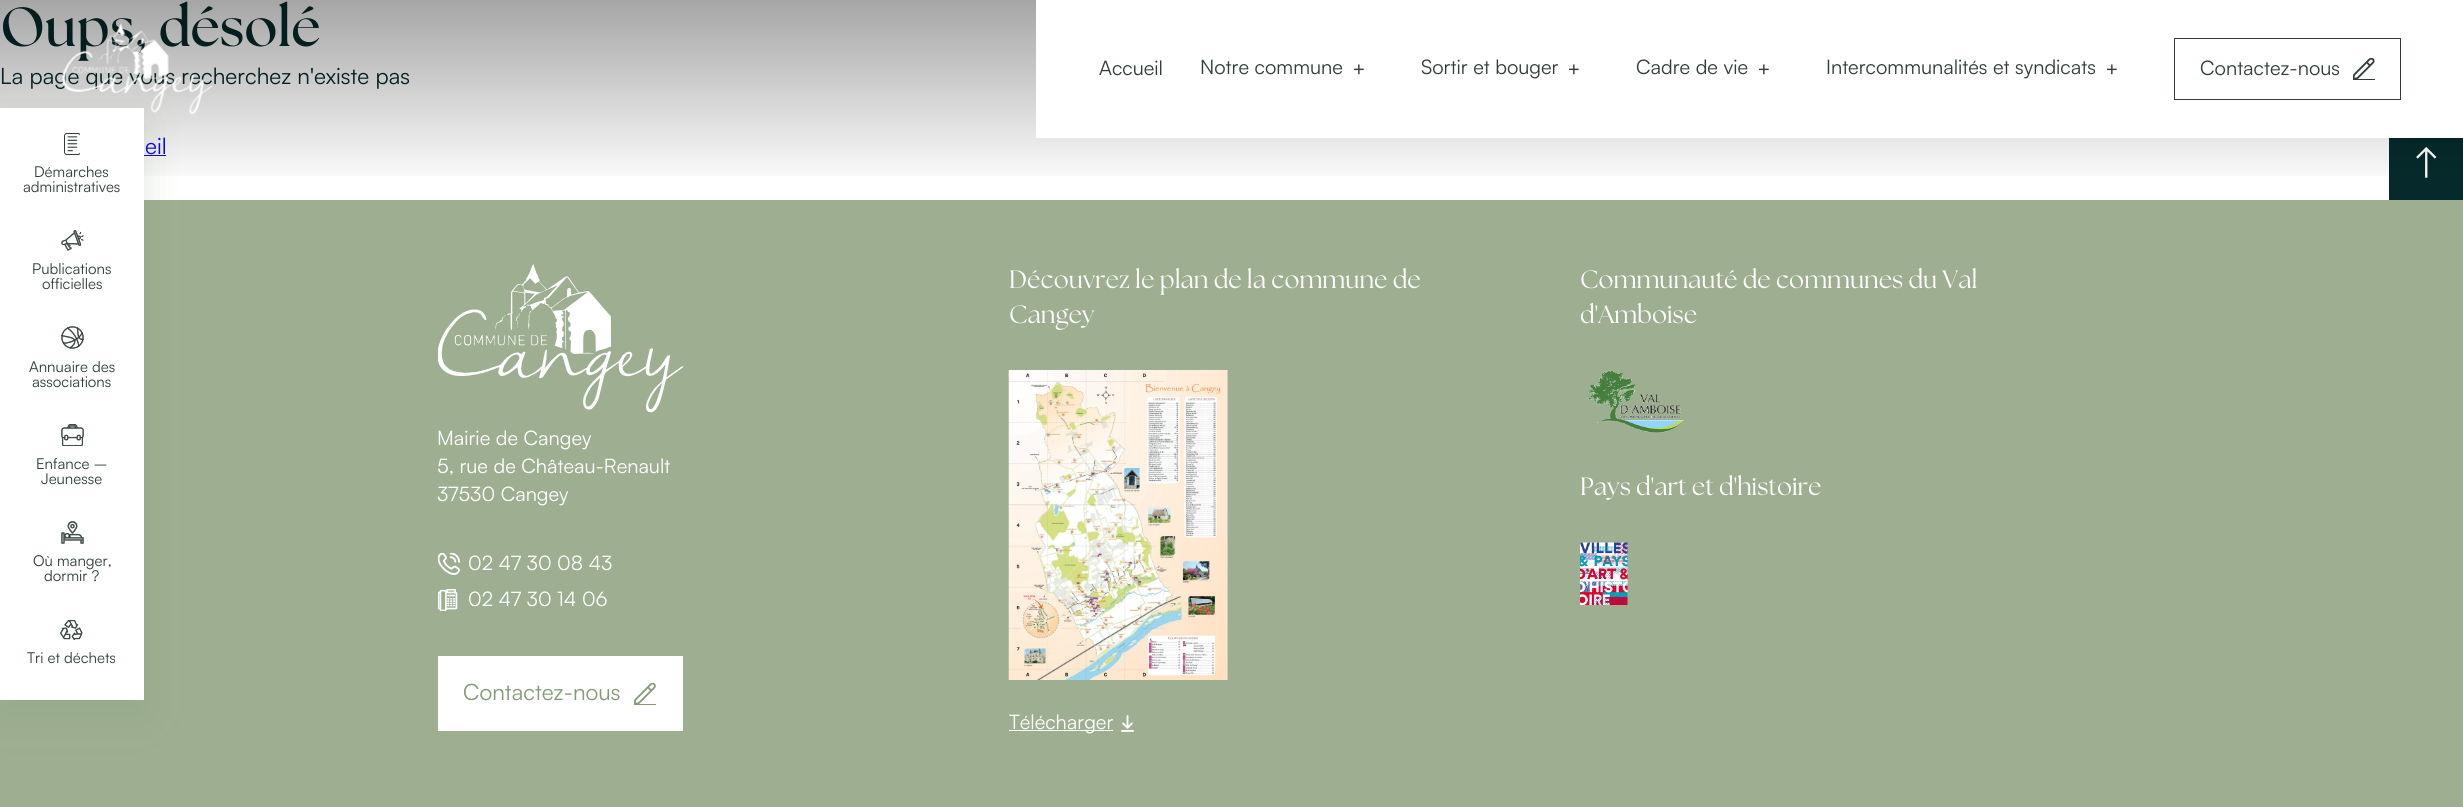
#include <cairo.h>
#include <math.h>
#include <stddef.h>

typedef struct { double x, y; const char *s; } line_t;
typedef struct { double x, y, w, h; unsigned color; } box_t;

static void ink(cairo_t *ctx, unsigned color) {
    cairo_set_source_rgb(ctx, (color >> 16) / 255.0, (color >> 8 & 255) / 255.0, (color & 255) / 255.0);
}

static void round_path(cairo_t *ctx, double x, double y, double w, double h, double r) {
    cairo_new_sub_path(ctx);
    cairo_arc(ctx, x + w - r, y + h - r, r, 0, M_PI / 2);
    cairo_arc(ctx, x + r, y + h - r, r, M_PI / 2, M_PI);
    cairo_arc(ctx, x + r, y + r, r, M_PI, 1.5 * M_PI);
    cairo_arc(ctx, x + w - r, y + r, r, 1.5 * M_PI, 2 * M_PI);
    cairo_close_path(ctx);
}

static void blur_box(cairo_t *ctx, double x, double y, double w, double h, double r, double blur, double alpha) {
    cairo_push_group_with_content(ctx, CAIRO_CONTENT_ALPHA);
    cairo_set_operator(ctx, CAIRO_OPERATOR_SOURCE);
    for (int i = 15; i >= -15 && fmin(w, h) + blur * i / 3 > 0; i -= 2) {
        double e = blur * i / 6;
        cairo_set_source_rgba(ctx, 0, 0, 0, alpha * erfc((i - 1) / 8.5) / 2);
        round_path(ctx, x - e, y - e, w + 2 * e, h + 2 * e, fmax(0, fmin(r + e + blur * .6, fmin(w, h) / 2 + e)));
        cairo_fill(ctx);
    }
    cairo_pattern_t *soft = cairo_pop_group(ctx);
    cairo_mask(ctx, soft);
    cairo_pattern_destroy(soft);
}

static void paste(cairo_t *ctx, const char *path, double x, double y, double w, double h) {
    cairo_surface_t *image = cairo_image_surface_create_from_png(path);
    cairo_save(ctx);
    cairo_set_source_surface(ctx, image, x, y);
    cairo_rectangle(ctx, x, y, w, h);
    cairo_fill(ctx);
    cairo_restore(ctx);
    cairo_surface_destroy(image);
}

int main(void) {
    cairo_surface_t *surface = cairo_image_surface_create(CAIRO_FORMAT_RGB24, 2463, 807);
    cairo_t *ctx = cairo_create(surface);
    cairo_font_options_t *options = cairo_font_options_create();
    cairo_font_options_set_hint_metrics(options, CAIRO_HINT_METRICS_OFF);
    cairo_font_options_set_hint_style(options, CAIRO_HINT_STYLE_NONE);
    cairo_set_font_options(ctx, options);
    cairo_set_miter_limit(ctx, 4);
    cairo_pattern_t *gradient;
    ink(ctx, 0xFFFFFF);
    cairo_paint(ctx);
    cairo_select_font_face(ctx, "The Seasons", CAIRO_FONT_SLANT_NORMAL, CAIRO_FONT_WEIGHT_BOLD);
    cairo_set_font_size(ctx, 55);
    ink(ctx, 0x062A2B);
    cairo_move_to(ctx, 0, 46);
    cairo_show_text(ctx, "Oups, désolé");
    cairo_select_font_face(ctx, "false", CAIRO_FONT_SLANT_NORMAL, CAIRO_FONT_WEIGHT_NORMAL);
    cairo_set_font_size(ctx, 22.5);
    cairo_move_to(ctx, 0, 84);
    cairo_show_text(ctx, "La page que vous recherchez n'existe pas");
    ink(ctx, 0x0000EE);
    cairo_move_to(ctx, 145, 154);
    cairo_show_text(ctx, "eil");
    {
        static const box_t items[] = {
            {144, 155, 22, 1, 0x0000EE},
            {0, 200, 2463, 607, 0x9DAE91},
            {2389, 138, 74, 62, 0x062A2B},
        };
        for (size_t i = 0; i < sizeof items / sizeof *items; i++) {
            ink(ctx, items[i].color);
            cairo_rectangle(ctx, items[i].x, items[i].y, items[i].w, items[i].h);
            cairo_fill(ctx);
        }
    }
    paste(ctx, "media/1.png", 2416, 147, 21, 31);
    cairo_select_font_face(ctx, "The Seasons", CAIRO_FONT_SLANT_NORMAL, CAIRO_FONT_WEIGHT_NORMAL);
    cairo_set_font_size(ctx, 25);
    ink(ctx, 0xFFFFFF);
    cairo_move_to(ctx, 1009, 288);
    cairo_show_text(ctx, "Découvrez le plan de la commune de");
    cairo_move_to(ctx, 1009, 323);
    cairo_show_text(ctx, "Cangey");
    paste(ctx, "media/2.png", 1008, 370, 220, 310);
    cairo_rectangle(ctx, 1009, 730, 104, 1);
    cairo_fill(ctx);
    cairo_select_font_face(ctx, "false", CAIRO_FONT_SLANT_NORMAL, CAIRO_FONT_WEIGHT_NORMAL);
    cairo_set_font_size(ctx, 20);
    cairo_move_to(ctx, 1009, 729);
    cairo_show_text(ctx, "Télécharger");
    paste(ctx, "media/3.png", 1121, 715, 13, 17);
    cairo_select_font_face(ctx, "The Seasons", CAIRO_FONT_SLANT_NORMAL, CAIRO_FONT_WEIGHT_NORMAL);
    cairo_set_font_size(ctx, 25);
    cairo_move_to(ctx, 1580, 288);
    cairo_show_text(ctx, "Communauté de communes du Val");
    cairo_move_to(ctx, 1580, 323);
    cairo_show_text(ctx, "d'Amboise");
    paste(ctx, "media/4.png", 1587, 370, 97, 63);
    cairo_move_to(ctx, 1580, 495);
    cairo_show_text(ctx, "Pays d'art et d'histoire");
    paste(ctx, "media/5.png", 1580, 542, 48, 63);
    paste(ctx, "media/6.png", 438, 264, 246, 149);
    cairo_select_font_face(ctx, "false", CAIRO_FONT_SLANT_NORMAL, CAIRO_FONT_WEIGHT_NORMAL);
    cairo_set_font_size(ctx, 20);
    {
        static const line_t items[] = {
            {437, 445, "Mairie de Cangey"},
            {437, 473, "5, rue de Château-Renault"},
            {437, 501, "37530 Cangey"},
        };
        for (size_t i = 0; i < sizeof items / sizeof *items; i++) {
            cairo_move_to(ctx, items[i].x, items[i].y);
            cairo_show_text(ctx, items[i].s);
        }
    }
    paste(ctx, "media/7.png", 438, 553, 22, 22);
    cairo_move_to(ctx, 468, 570);
    cairo_show_text(ctx, "02 47 30 08 43");
    paste(ctx, "media/8.png", 438, 589, 20, 22);
    cairo_move_to(ctx, 468, 606);
    cairo_show_text(ctx, "02 47 30 14 06");
    cairo_rectangle(ctx, 438, 656, 245, 75);
    cairo_fill(ctx);
    cairo_set_font_size(ctx, 22.5);
    ink(ctx, 0x859A76);
    cairo_move_to(ctx, 463, 700);
    cairo_show_text(ctx, "Contactez-nous");
    paste(ctx, "media/9.png", 634, 683, 22, 22);
    gradient = cairo_pattern_create_linear(1232, 0, 1232, 188);
    cairo_pattern_add_color_stop_rgba(gradient, 0, 0, 0, 0, 0.35);
    cairo_pattern_add_color_stop_rgba(gradient, 1, 0, 0, 0, 0);
    cairo_set_source(ctx, gradient);
    cairo_pattern_destroy(gradient);
    cairo_rectangle(ctx, 0, 0, 2463, 176);
    cairo_fill(ctx);
    paste(ctx, "media/10.png", 62, 23, 151, 91);
    ink(ctx, 0xFFFFFF);
    cairo_rectangle(ctx, 1036, 0, 1427, 138);
    cairo_fill(ctx);
    cairo_set_font_size(ctx, 20);
    ink(ctx, 0x303D3A);
    cairo_move_to(ctx, 1099, 75);
    cairo_show_text(ctx, "Accueil");
    cairo_move_to(ctx, 1200, 74);
    cairo_show_text(ctx, "Notre commune");
    cairo_select_font_face(ctx, "Liberation Sans", CAIRO_FONT_SLANT_NORMAL, CAIRO_FONT_WEIGHT_NORMAL);
    cairo_move_to(ctx, 1353, 76);
    cairo_show_text(ctx, "+");
    cairo_select_font_face(ctx, "false", CAIRO_FONT_SLANT_NORMAL, CAIRO_FONT_WEIGHT_NORMAL);
    cairo_move_to(ctx, 1421, 74);
    cairo_show_text(ctx, "Sortir et bouger");
    cairo_select_font_face(ctx, "Liberation Sans", CAIRO_FONT_SLANT_NORMAL, CAIRO_FONT_WEIGHT_NORMAL);
    cairo_move_to(ctx, 1568, 76);
    cairo_show_text(ctx, "+");
    cairo_select_font_face(ctx, "false", CAIRO_FONT_SLANT_NORMAL, CAIRO_FONT_WEIGHT_NORMAL);
    cairo_move_to(ctx, 1636, 74);
    cairo_show_text(ctx, "Cadre de vie");
    cairo_select_font_face(ctx, "Liberation Sans", CAIRO_FONT_SLANT_NORMAL, CAIRO_FONT_WEIGHT_NORMAL);
    cairo_move_to(ctx, 1758, 76);
    cairo_show_text(ctx, "+");
    cairo_select_font_face(ctx, "false", CAIRO_FONT_SLANT_NORMAL, CAIRO_FONT_WEIGHT_NORMAL);
    cairo_move_to(ctx, 1826, 74);
    cairo_show_text(ctx, "Intercommunalités et syndicats");
    cairo_select_font_face(ctx, "Liberation Sans", CAIRO_FONT_SLANT_NORMAL, CAIRO_FONT_WEIGHT_NORMAL);
    cairo_move_to(ctx, 2106, 76);
    cairo_show_text(ctx, "+");
    cairo_rectangle(ctx, 2174.5, 38.5, 226, 61);
    cairo_set_line_width(ctx, 1);
    cairo_stroke(ctx);
    cairo_select_font_face(ctx, "false", CAIRO_FONT_SLANT_NORMAL, CAIRO_FONT_WEIGHT_NORMAL);
    cairo_move_to(ctx, 2200, 75);
    cairo_show_text(ctx, "Contactez-nous");
    paste(ctx, "media/11.png", 2353, 58, 22, 22);
    ink(ctx, 0x849975);
    blur_box(ctx, 0, 120, 144, 593, 0, 19, 0.23);
    ink(ctx, 0xFFFFFF);
    cairo_rectangle(ctx, 0, 108, 144, 592);
    cairo_fill(ctx);
    paste(ctx, "media/12.png", 64, 133, 16, 22);
    cairo_set_font_size(ctx, 15);
    ink(ctx, 0x303D3A);
    cairo_move_to(ctx, 34, 177);
    cairo_show_text(ctx, "Démarches");
    cairo_move_to(ctx, 23, 192);
    cairo_show_text(ctx, "administratives");
    paste(ctx, "media/13.png", 61, 230, 23, 21);
    cairo_move_to(ctx, 32, 274);
    cairo_show_text(ctx, "Publications");
    cairo_move_to(ctx, 42, 289);
    cairo_show_text(ctx, "officielles");
    paste(ctx, "media/14.png", 61, 326, 23, 23);
    cairo_move_to(ctx, 29, 372);
    cairo_show_text(ctx, "Annuaire des");
    cairo_move_to(ctx, 32, 387);
    cairo_show_text(ctx, "associations");
    paste(ctx, "media/15.png", 61, 424, 23, 22);
    cairo_move_to(ctx, 36, 469);
    cairo_show_text(ctx, "Enfance –");
    cairo_move_to(ctx, 41, 484);
    cairo_show_text(ctx, "Jeunesse");
    paste(ctx, "media/16.png", 61, 521, 23, 23);
    cairo_move_to(ctx, 33, 566);
    cairo_show_text(ctx, "Où manger,");
    cairo_move_to(ctx, 44, 581);
    cairo_show_text(ctx, "dormir ?");
    paste(ctx, "media/17.png", 60, 620, 23, 20);
    cairo_move_to(ctx, 27, 663);
    cairo_show_text(ctx, "Tri et déchets");
    cairo_surface_write_to_png(surface, "image.png");
    cairo_font_options_destroy(options);
    cairo_destroy(ctx);
    cairo_surface_destroy(surface);
    return 0;
}
